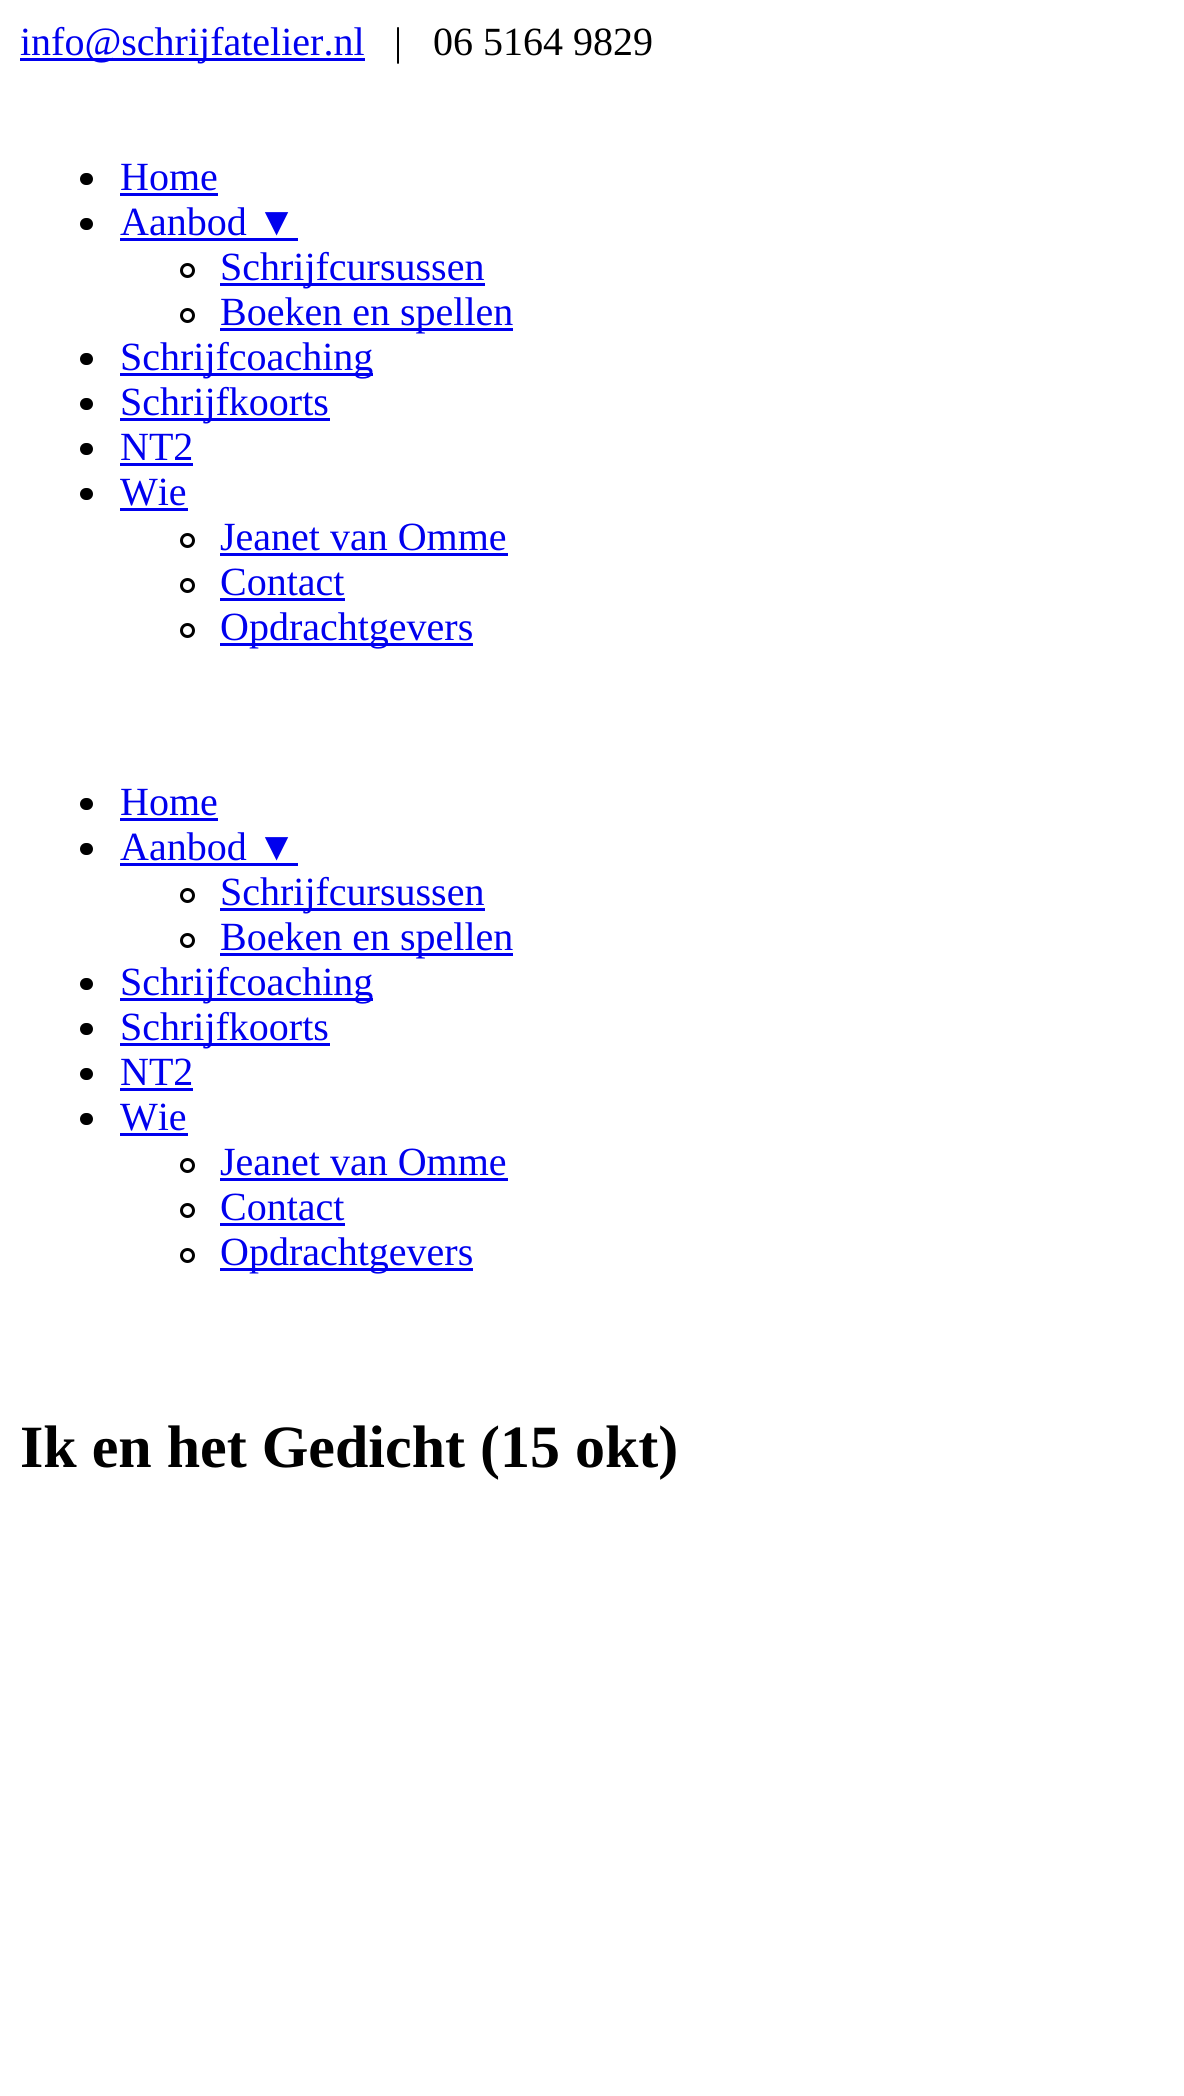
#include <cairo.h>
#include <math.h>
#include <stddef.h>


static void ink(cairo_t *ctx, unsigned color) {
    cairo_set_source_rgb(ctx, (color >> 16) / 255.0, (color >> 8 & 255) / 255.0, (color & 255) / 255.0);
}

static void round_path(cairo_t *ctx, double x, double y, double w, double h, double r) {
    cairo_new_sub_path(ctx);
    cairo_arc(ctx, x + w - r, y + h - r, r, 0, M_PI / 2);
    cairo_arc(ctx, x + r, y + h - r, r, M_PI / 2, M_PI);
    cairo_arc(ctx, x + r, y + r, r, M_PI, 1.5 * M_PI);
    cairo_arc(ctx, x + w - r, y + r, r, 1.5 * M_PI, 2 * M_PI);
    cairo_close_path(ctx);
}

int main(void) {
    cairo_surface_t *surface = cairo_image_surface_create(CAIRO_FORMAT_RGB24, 1184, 2096);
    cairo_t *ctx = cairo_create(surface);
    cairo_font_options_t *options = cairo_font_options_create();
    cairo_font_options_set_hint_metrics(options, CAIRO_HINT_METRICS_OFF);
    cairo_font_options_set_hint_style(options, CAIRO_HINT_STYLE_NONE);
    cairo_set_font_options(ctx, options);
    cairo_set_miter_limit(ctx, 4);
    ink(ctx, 0xFFFFFF);
    cairo_paint(ctx);
    ink(ctx, 0x0000EE);
    cairo_rectangle(ctx, 20, 58, 345, 3);
    cairo_fill(ctx);
    cairo_select_font_face(ctx, "Liberation Serif", CAIRO_FONT_SLANT_NORMAL, CAIRO_FONT_WEIGHT_NORMAL);
    cairo_set_font_size(ctx, 40);
    cairo_move_to(ctx, 20, 55);
    cairo_show_text(ctx, "info@schrijfatelier.nl");
    ink(ctx, 0x000000);
    cairo_move_to(ctx, 394, 55);
    cairo_show_text(ctx, "|");
    cairo_move_to(ctx, 433, 55);
    cairo_show_text(ctx, "06 5164 9829");
    round_path(ctx, 80, 173, 13, 12, 6);
    cairo_fill(ctx);
    ink(ctx, 0x0000EE);
    cairo_move_to(ctx, 120, 190);
    cairo_show_text(ctx, "Home");
    cairo_rectangle(ctx, 120, 193, 98, 3);
    cairo_fill(ctx);
    ink(ctx, 0x000000);
    round_path(ctx, 80, 218, 13, 12, 6);
    cairo_fill(ctx);
    ink(ctx, 0x0000EE);
    cairo_move_to(ctx, 120, 235);
    cairo_show_text(ctx, "Aanbod ▼");
    cairo_rectangle(ctx, 120, 238, 178, 3);
    cairo_fill(ctx);
    cairo_arc(ctx, 187.5, 270.5, 6, 0, 2 * M_PI);
    ink(ctx, 0x000000);
    cairo_set_line_width(ctx, 3);
    cairo_stroke(ctx);
    ink(ctx, 0x0000EE);
    cairo_rectangle(ctx, 220, 283, 265, 3);
    cairo_fill(ctx);
    cairo_move_to(ctx, 220, 280);
    cairo_show_text(ctx, "Schrijfcursussen");
    cairo_new_path(ctx);
    cairo_arc(ctx, 187.5, 315.5, 6, 0, 2 * M_PI);
    ink(ctx, 0x000000);
    cairo_stroke(ctx);
    ink(ctx, 0x0000EE);
    cairo_rectangle(ctx, 220, 328, 293, 3);
    cairo_fill(ctx);
    cairo_move_to(ctx, 220, 325);
    cairo_show_text(ctx, "Boeken en spellen");
    ink(ctx, 0x000000);
    round_path(ctx, 80, 353, 13, 12, 6);
    cairo_fill(ctx);
    ink(ctx, 0x0000EE);
    cairo_rectangle(ctx, 120, 373, 253, 3);
    cairo_fill(ctx);
    cairo_move_to(ctx, 120, 370);
    cairo_show_text(ctx, "Schrijfcoaching");
    ink(ctx, 0x000000);
    round_path(ctx, 80, 398, 13, 12, 6);
    cairo_fill(ctx);
    ink(ctx, 0x0000EE);
    cairo_rectangle(ctx, 120, 418, 210, 3);
    cairo_fill(ctx);
    cairo_move_to(ctx, 120, 415);
    cairo_show_text(ctx, "Schrijfkoorts");
    ink(ctx, 0x000000);
    round_path(ctx, 80, 443, 13, 12, 6);
    cairo_fill(ctx);
    ink(ctx, 0x0000EE);
    cairo_move_to(ctx, 120, 460);
    cairo_show_text(ctx, "NT2");
    cairo_rectangle(ctx, 120, 463, 73, 3);
    cairo_fill(ctx);
    ink(ctx, 0x000000);
    round_path(ctx, 80, 488, 13, 12, 6);
    cairo_fill(ctx);
    ink(ctx, 0x0000EE);
    cairo_move_to(ctx, 120, 505);
    cairo_show_text(ctx, "Wie");
    cairo_rectangle(ctx, 120, 508, 68, 3);
    cairo_fill(ctx);
    cairo_arc(ctx, 187.5, 540.5, 6, 0, 2 * M_PI);
    ink(ctx, 0x000000);
    cairo_stroke(ctx);
    ink(ctx, 0x0000EE);
    cairo_move_to(ctx, 220, 550);
    cairo_show_text(ctx, "Jeanet van Omme");
    cairo_rectangle(ctx, 220, 553, 288, 3);
    cairo_fill(ctx);
    cairo_arc(ctx, 187.5, 585.5, 6, 0, 2 * M_PI);
    ink(ctx, 0x000000);
    cairo_stroke(ctx);
    ink(ctx, 0x0000EE);
    cairo_move_to(ctx, 220, 595);
    cairo_show_text(ctx, "Contact");
    cairo_rectangle(ctx, 220, 598, 125, 3);
    cairo_fill(ctx);
    cairo_arc(ctx, 187.5, 630.5, 6, 0, 2 * M_PI);
    ink(ctx, 0x000000);
    cairo_stroke(ctx);
    ink(ctx, 0x0000EE);
    cairo_rectangle(ctx, 220, 643, 253, 3);
    cairo_fill(ctx);
    cairo_move_to(ctx, 220, 640);
    cairo_show_text(ctx, "Opdrachtgevers");
    ink(ctx, 0x000000);
    round_path(ctx, 80, 798, 13, 12, 6);
    cairo_fill(ctx);
    ink(ctx, 0x0000EE);
    cairo_move_to(ctx, 120, 815);
    cairo_show_text(ctx, "Home");
    cairo_rectangle(ctx, 120, 818, 98, 3);
    cairo_fill(ctx);
    ink(ctx, 0x000000);
    round_path(ctx, 80, 843, 13, 12, 6);
    cairo_fill(ctx);
    ink(ctx, 0x0000EE);
    cairo_move_to(ctx, 120, 860);
    cairo_show_text(ctx, "Aanbod ▼");
    cairo_rectangle(ctx, 120, 863, 178, 3);
    cairo_fill(ctx);
    cairo_arc(ctx, 187.5, 895.5, 6, 0, 2 * M_PI);
    ink(ctx, 0x000000);
    cairo_stroke(ctx);
    ink(ctx, 0x0000EE);
    cairo_rectangle(ctx, 220, 908, 265, 3);
    cairo_fill(ctx);
    cairo_move_to(ctx, 220, 905);
    cairo_show_text(ctx, "Schrijfcursussen");
    cairo_new_path(ctx);
    cairo_arc(ctx, 187.5, 940.5, 6, 0, 2 * M_PI);
    ink(ctx, 0x000000);
    cairo_stroke(ctx);
    ink(ctx, 0x0000EE);
    cairo_rectangle(ctx, 220, 953, 293, 3);
    cairo_fill(ctx);
    cairo_move_to(ctx, 220, 950);
    cairo_show_text(ctx, "Boeken en spellen");
    ink(ctx, 0x000000);
    round_path(ctx, 80, 978, 13, 12, 6);
    cairo_fill(ctx);
    ink(ctx, 0x0000EE);
    cairo_rectangle(ctx, 120, 998, 253, 3);
    cairo_fill(ctx);
    cairo_move_to(ctx, 120, 995);
    cairo_show_text(ctx, "Schrijfcoaching");
    ink(ctx, 0x000000);
    round_path(ctx, 80, 1023, 13, 12, 6);
    cairo_fill(ctx);
    ink(ctx, 0x0000EE);
    cairo_rectangle(ctx, 120, 1043, 210, 3);
    cairo_fill(ctx);
    cairo_move_to(ctx, 120, 1040);
    cairo_show_text(ctx, "Schrijfkoorts");
    ink(ctx, 0x000000);
    round_path(ctx, 80, 1068, 13, 12, 6);
    cairo_fill(ctx);
    ink(ctx, 0x0000EE);
    cairo_move_to(ctx, 120, 1085);
    cairo_show_text(ctx, "NT2");
    cairo_rectangle(ctx, 120, 1088, 73, 3);
    cairo_fill(ctx);
    ink(ctx, 0x000000);
    round_path(ctx, 80, 1113, 13, 12, 6);
    cairo_fill(ctx);
    ink(ctx, 0x0000EE);
    cairo_move_to(ctx, 120, 1130);
    cairo_show_text(ctx, "Wie");
    cairo_rectangle(ctx, 120, 1133, 68, 3);
    cairo_fill(ctx);
    cairo_arc(ctx, 187.5, 1165.5, 6, 0, 2 * M_PI);
    ink(ctx, 0x000000);
    cairo_stroke(ctx);
    ink(ctx, 0x0000EE);
    cairo_move_to(ctx, 220, 1175);
    cairo_show_text(ctx, "Jeanet van Omme");
    cairo_rectangle(ctx, 220, 1178, 288, 3);
    cairo_fill(ctx);
    cairo_arc(ctx, 187.5, 1210.5, 6, 0, 2 * M_PI);
    ink(ctx, 0x000000);
    cairo_stroke(ctx);
    ink(ctx, 0x0000EE);
    cairo_move_to(ctx, 220, 1220);
    cairo_show_text(ctx, "Contact");
    cairo_rectangle(ctx, 220, 1223, 125, 3);
    cairo_fill(ctx);
    cairo_arc(ctx, 187.5, 1255.5, 6, 0, 2 * M_PI);
    ink(ctx, 0x000000);
    cairo_stroke(ctx);
    ink(ctx, 0x0000EE);
    cairo_rectangle(ctx, 220, 1268, 253, 3);
    cairo_fill(ctx);
    cairo_move_to(ctx, 220, 1265);
    cairo_show_text(ctx, "Opdrachtgevers");
    cairo_select_font_face(ctx, "Liberation Serif", CAIRO_FONT_SLANT_NORMAL, CAIRO_FONT_WEIGHT_BOLD);
    cairo_set_font_size(ctx, 60);
    ink(ctx, 0x000000);
    cairo_move_to(ctx, 20, 1467);
    cairo_show_text(ctx, "Ik en het Gedicht (15 okt)");
    cairo_surface_write_to_png(surface, "image.png");
    cairo_font_options_destroy(options);
    cairo_destroy(ctx);
    cairo_surface_destroy(surface);
    return 0;
}
